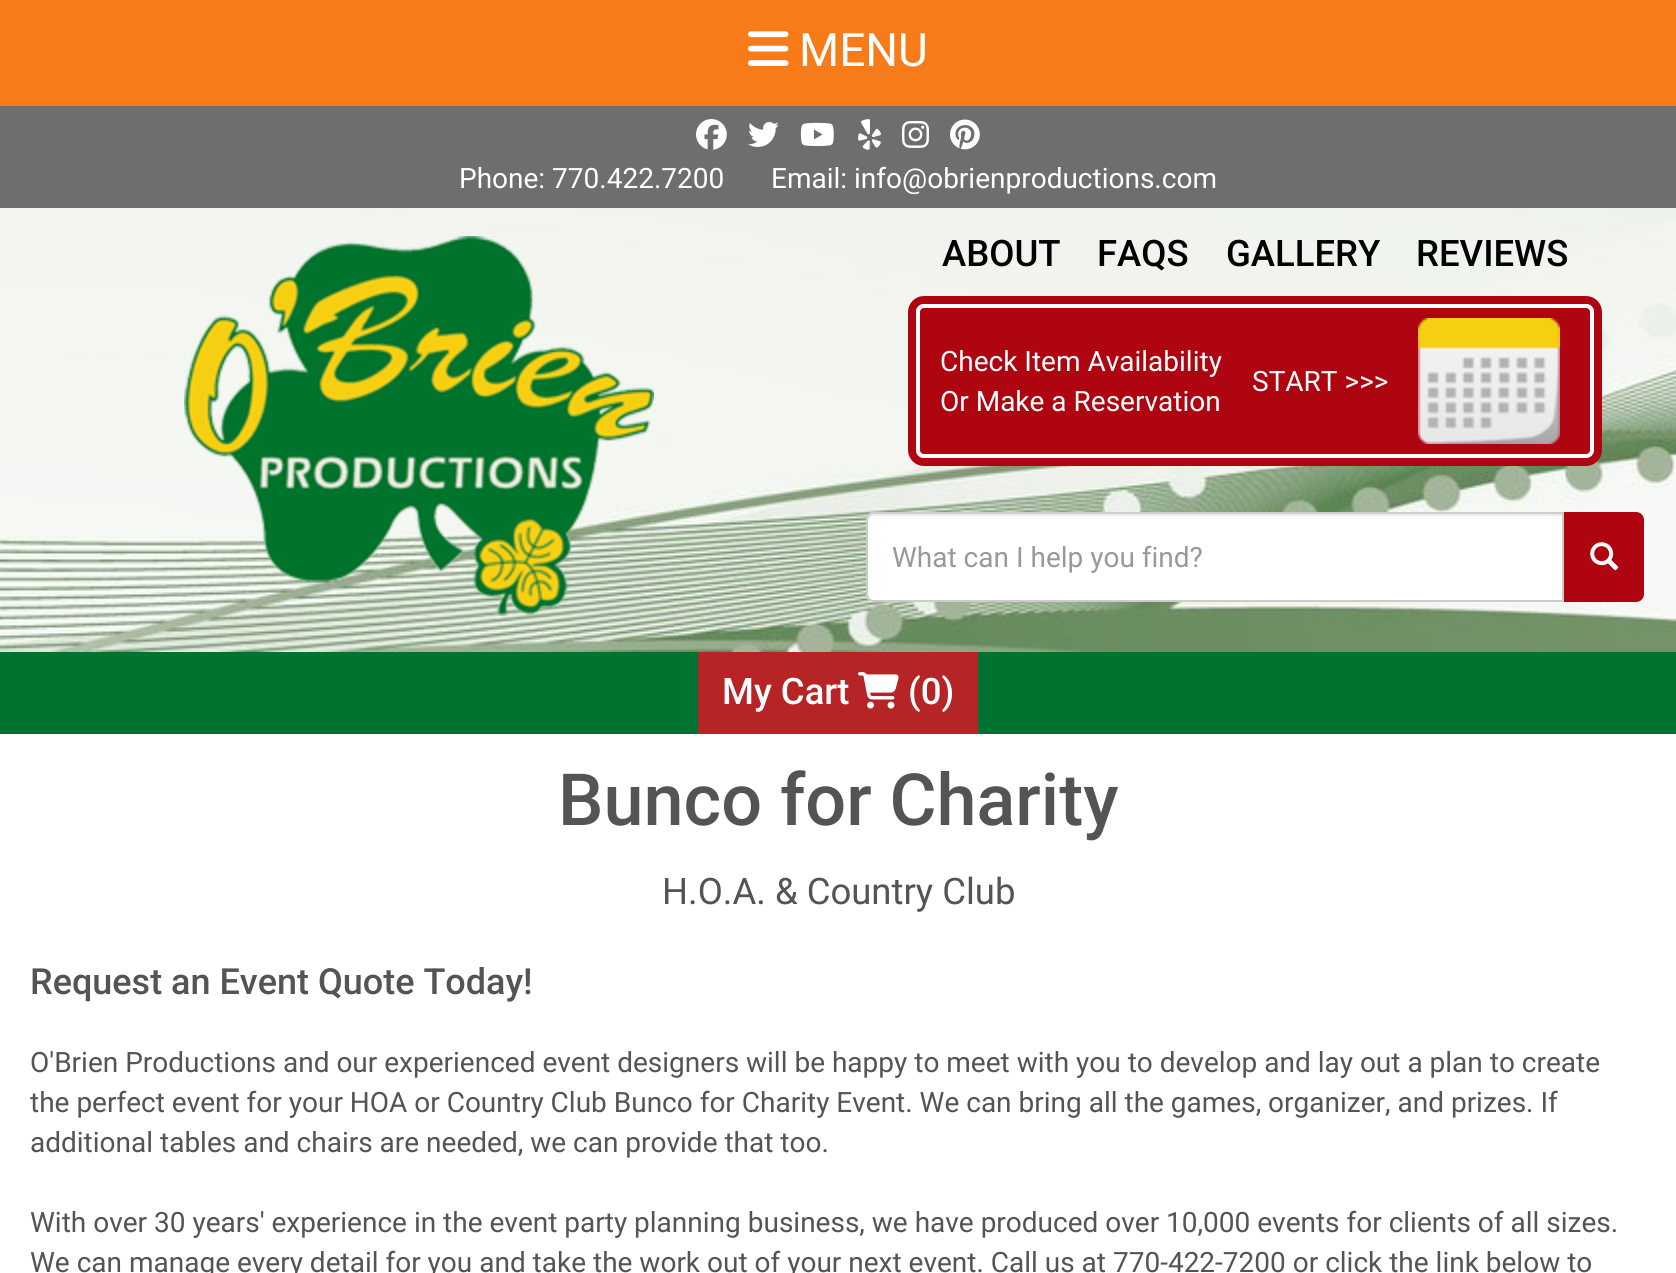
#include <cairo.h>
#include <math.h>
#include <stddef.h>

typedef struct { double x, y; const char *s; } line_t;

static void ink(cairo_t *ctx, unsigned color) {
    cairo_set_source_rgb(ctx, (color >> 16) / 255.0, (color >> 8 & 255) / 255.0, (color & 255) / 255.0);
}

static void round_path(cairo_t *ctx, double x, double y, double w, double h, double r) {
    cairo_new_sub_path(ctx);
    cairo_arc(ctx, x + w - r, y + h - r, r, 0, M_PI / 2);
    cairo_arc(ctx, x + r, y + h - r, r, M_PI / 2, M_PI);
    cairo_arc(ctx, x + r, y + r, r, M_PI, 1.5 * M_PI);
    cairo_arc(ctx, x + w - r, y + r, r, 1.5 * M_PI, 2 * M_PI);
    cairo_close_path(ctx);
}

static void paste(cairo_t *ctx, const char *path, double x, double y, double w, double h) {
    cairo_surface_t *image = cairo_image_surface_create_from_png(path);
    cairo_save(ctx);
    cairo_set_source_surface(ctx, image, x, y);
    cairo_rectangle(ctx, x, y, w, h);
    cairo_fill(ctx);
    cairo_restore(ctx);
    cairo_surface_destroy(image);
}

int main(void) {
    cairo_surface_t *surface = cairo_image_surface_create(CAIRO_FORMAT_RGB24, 1676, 1273);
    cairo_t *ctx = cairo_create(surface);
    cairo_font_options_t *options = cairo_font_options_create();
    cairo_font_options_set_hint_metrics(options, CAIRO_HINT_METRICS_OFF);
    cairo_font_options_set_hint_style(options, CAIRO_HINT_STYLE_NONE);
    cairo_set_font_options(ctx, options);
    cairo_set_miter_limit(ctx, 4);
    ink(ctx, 0xFFFFFF);
    cairo_paint(ctx);
    ink(ctx, 0xF77C19);
    cairo_rectangle(ctx, 0, 0, 1676, 106);
    cairo_fill(ctx);
    paste(ctx, "media/1.png", 748, 31, 41, 35);
    cairo_select_font_face(ctx, "Roboto", CAIRO_FONT_SLANT_NORMAL, CAIRO_FONT_WEIGHT_NORMAL);
    cairo_set_font_size(ctx, 46);
    ink(ctx, 0xFFFFFF);
    cairo_move_to(ctx, 799, 66);
    cairo_show_text(ctx, "MENU");
    ink(ctx, 0x007331);
    cairo_rectangle(ctx, 0, 652, 1676, 82);
    cairo_fill(ctx);
    ink(ctx, 0xB72426);
    cairo_rectangle(ctx, 698, 652, 280, 82);
    cairo_fill(ctx);
    cairo_select_font_face(ctx, "Roboto Medium", CAIRO_FONT_SLANT_NORMAL, CAIRO_FONT_WEIGHT_NORMAL);
    cairo_set_font_size(ctx, 36.5);
    ink(ctx, 0xFFFFFF);
    cairo_move_to(ctx, 722, 704);
    cairo_show_text(ctx, "My Cart");
    paste(ctx, "media/2.png", 858, 672, 41, 37);
    cairo_move_to(ctx, 908, 704);
    cairo_show_text(ctx, "(0)");
    ink(ctx, 0x6E6E6E);
    cairo_rectangle(ctx, 0, 106, 1676, 102);
    cairo_fill(ctx);
    paste(ctx, "media/3.png", 696, 119, 31, 31);
    paste(ctx, "media/4.png", 748, 121, 31, 26);
    paste(ctx, "media/5.png", 800, 122, 34, 24);
    paste(ctx, "media/6.png", 858, 119, 23, 31);
    paste(ctx, "media/7.png", 902, 121, 27, 27);
    paste(ctx, "media/8.png", 950, 119, 30, 31);
    cairo_select_font_face(ctx, "Roboto", CAIRO_FONT_SLANT_NORMAL, CAIRO_FONT_WEIGHT_NORMAL);
    cairo_set_font_size(ctx, 28);
    ink(ctx, 0xFFFFFF);
    cairo_move_to(ctx, 459, 188);
    cairo_show_text(ctx, "Phone: 770.422.7200");
    cairo_move_to(ctx, 771, 188);
    cairo_show_text(ctx, "Email: info@obrienproductions.com");
    paste(ctx, "media/9.png", 0, 208, 1676, 444);
    paste(ctx, "media/10.png", 184, 236, 470, 380);
    cairo_select_font_face(ctx, "Roboto Medium", CAIRO_FONT_SLANT_NORMAL, CAIRO_FONT_WEIGHT_NORMAL);
    cairo_set_font_size(ctx, 36.5);
    ink(ctx, 0x000000);
    {
        static const line_t items[] = {
            {942, 266, "ABOUT"},
            {1097, 266, "FAQS"},
            {1226, 266, "GALLERY"},
            {1416, 266, "REVIEWS"},
        };
        for (size_t i = 0; i < sizeof items / sizeof *items; i++) {
            cairo_move_to(ctx, items[i].x, items[i].y);
            cairo_show_text(ctx, items[i].s);
        }
    }
    round_path(ctx, 912, 300, 686, 162, 12);
    ink(ctx, 0xAE0511);
    cairo_set_line_width(ctx, 8);
    cairo_stroke(ctx);
    round_path(ctx, 918, 306, 674, 150, 6);
    cairo_fill_preserve(ctx);
    ink(ctx, 0xFFFFFF);
    cairo_set_line_width(ctx, 4);
    cairo_stroke(ctx);
    cairo_select_font_face(ctx, "Roboto", CAIRO_FONT_SLANT_NORMAL, CAIRO_FONT_WEIGHT_NORMAL);
    cairo_set_font_size(ctx, 28);
    {
        static const line_t items[] = {
            {940, 371, "Check Item Availability"},
            {940, 411, "Or Make a Reservation"},
            {1252, 391, "START >>>"},
        };
        for (size_t i = 0; i < sizeof items / sizeof *items; i++) {
            cairo_move_to(ctx, items[i].x, items[i].y);
            cairo_show_text(ctx, items[i].s);
        }
    }
    paste(ctx, "media/11.png", 1418, 318, 142, 126);
    cairo_new_path(ctx);
    cairo_move_to(ctx, 874, 512);
    cairo_line_to(ctx, 1564, 512);
    cairo_line_to(ctx, 1564, 602);
    cairo_line_to(ctx, 874, 602);
    cairo_curve_to(ctx, 869.5, 602, 866, 598.5, 866, 594);
    cairo_line_to(ctx, 866, 520);
    cairo_curve_to(ctx, 866, 515.5, 869.5, 512, 874, 512);
    cairo_close_path(ctx);
    cairo_fill(ctx);
    ink(ctx, 0xECECEC);
    cairo_new_path(ctx);
    cairo_move_to(ctx, 874, 516);
    cairo_line_to(ctx, 1562, 516);
    cairo_line_to(ctx, 1562, 514);
    cairo_line_to(ctx, 874, 514);
    cairo_curve_to(ctx, 871, 514, 868, 517, 868, 520);
    cairo_line_to(ctx, 868, 522);
    cairo_curve_to(ctx, 868, 519, 871, 516, 874, 516);
    cairo_close_path(ctx);
    cairo_fill(ctx);
    cairo_new_path(ctx);
    cairo_move_to(ctx, 874, 513);
    cairo_line_to(ctx, 1563, 513);
    cairo_line_to(ctx, 1563, 601);
    cairo_line_to(ctx, 874, 601);
    cairo_curve_to(ctx, 870, 601, 867, 598, 867, 594);
    cairo_line_to(ctx, 867, 520);
    cairo_curve_to(ctx, 867, 516, 870, 513, 874, 513);
    cairo_close_path(ctx);
    ink(ctx, 0xCCCCCC);
    cairo_set_line_width(ctx, 2);
    cairo_stroke(ctx);
    ink(ctx, 0x999999);
    cairo_move_to(ctx, 892, 567);
    cairo_show_text(ctx, "What can I help you find?");
    ink(ctx, 0xAE0511);
    cairo_new_path(ctx);
    cairo_move_to(ctx, 1565, 513);
    cairo_line_to(ctx, 1636, 513);
    cairo_curve_to(ctx, 1640, 513, 1643, 516, 1643, 520);
    cairo_line_to(ctx, 1643, 594);
    cairo_curve_to(ctx, 1643, 598, 1640, 601, 1636, 601);
    cairo_line_to(ctx, 1565, 601);
    cairo_close_path(ctx);
    cairo_fill_preserve(ctx);
    cairo_stroke(ctx);
    paste(ctx, "media/12.png", 1590, 542, 29, 29);
    cairo_select_font_face(ctx, "Roboto Medium", CAIRO_FONT_SLANT_NORMAL, CAIRO_FONT_WEIGHT_NORMAL);
    cairo_set_font_size(ctx, 72);
    ink(ctx, 0x545454);
    cairo_move_to(ctx, 558, 825);
    cairo_show_text(ctx, "Bunco for Charity");
    cairo_select_font_face(ctx, "Roboto", CAIRO_FONT_SLANT_NORMAL, CAIRO_FONT_WEIGHT_NORMAL);
    cairo_set_font_size(ctx, 36.5);
    cairo_move_to(ctx, 662, 904);
    cairo_show_text(ctx, "H.O.A. & Country Club");
    cairo_select_font_face(ctx, "Roboto Medium", CAIRO_FONT_SLANT_NORMAL, CAIRO_FONT_WEIGHT_NORMAL);
    cairo_set_font_size(ctx, 36);
    cairo_move_to(ctx, 30, 994);
    cairo_show_text(ctx, "Request an Event Quote Today!");
    cairo_select_font_face(ctx, "Roboto", CAIRO_FONT_SLANT_NORMAL, CAIRO_FONT_WEIGHT_NORMAL);
    cairo_set_font_size(ctx, 28);
    {
        static const line_t items[] = {
            {30, 1072, "O'Brien Productions and our experienced event designers will be happy to meet with you to develop and lay out a plan to create"},
            {30, 1112, "the perfect event for your HOA or Country Club Bunco for Charity Event. We can bring all the games, organizer, and prizes. If"},
            {30, 1152, "additional tables and chairs are needed, we can provide that too."},
            {30, 1232, "With over 30 years' experience in the event party planning business, we have produced over 10,000 events for clients of all sizes."},
            {30, 1272, "We can manage every detail for you and take the work out of your next event. Call us at 770-422-7200 or click the link below to"},
        };
        for (size_t i = 0; i < sizeof items / sizeof *items; i++) {
            cairo_move_to(ctx, items[i].x, items[i].y);
            cairo_show_text(ctx, items[i].s);
        }
    }
    cairo_surface_write_to_png(surface, "image.png");
    cairo_font_options_destroy(options);
    cairo_destroy(ctx);
    cairo_surface_destroy(surface);
    return 0;
}
